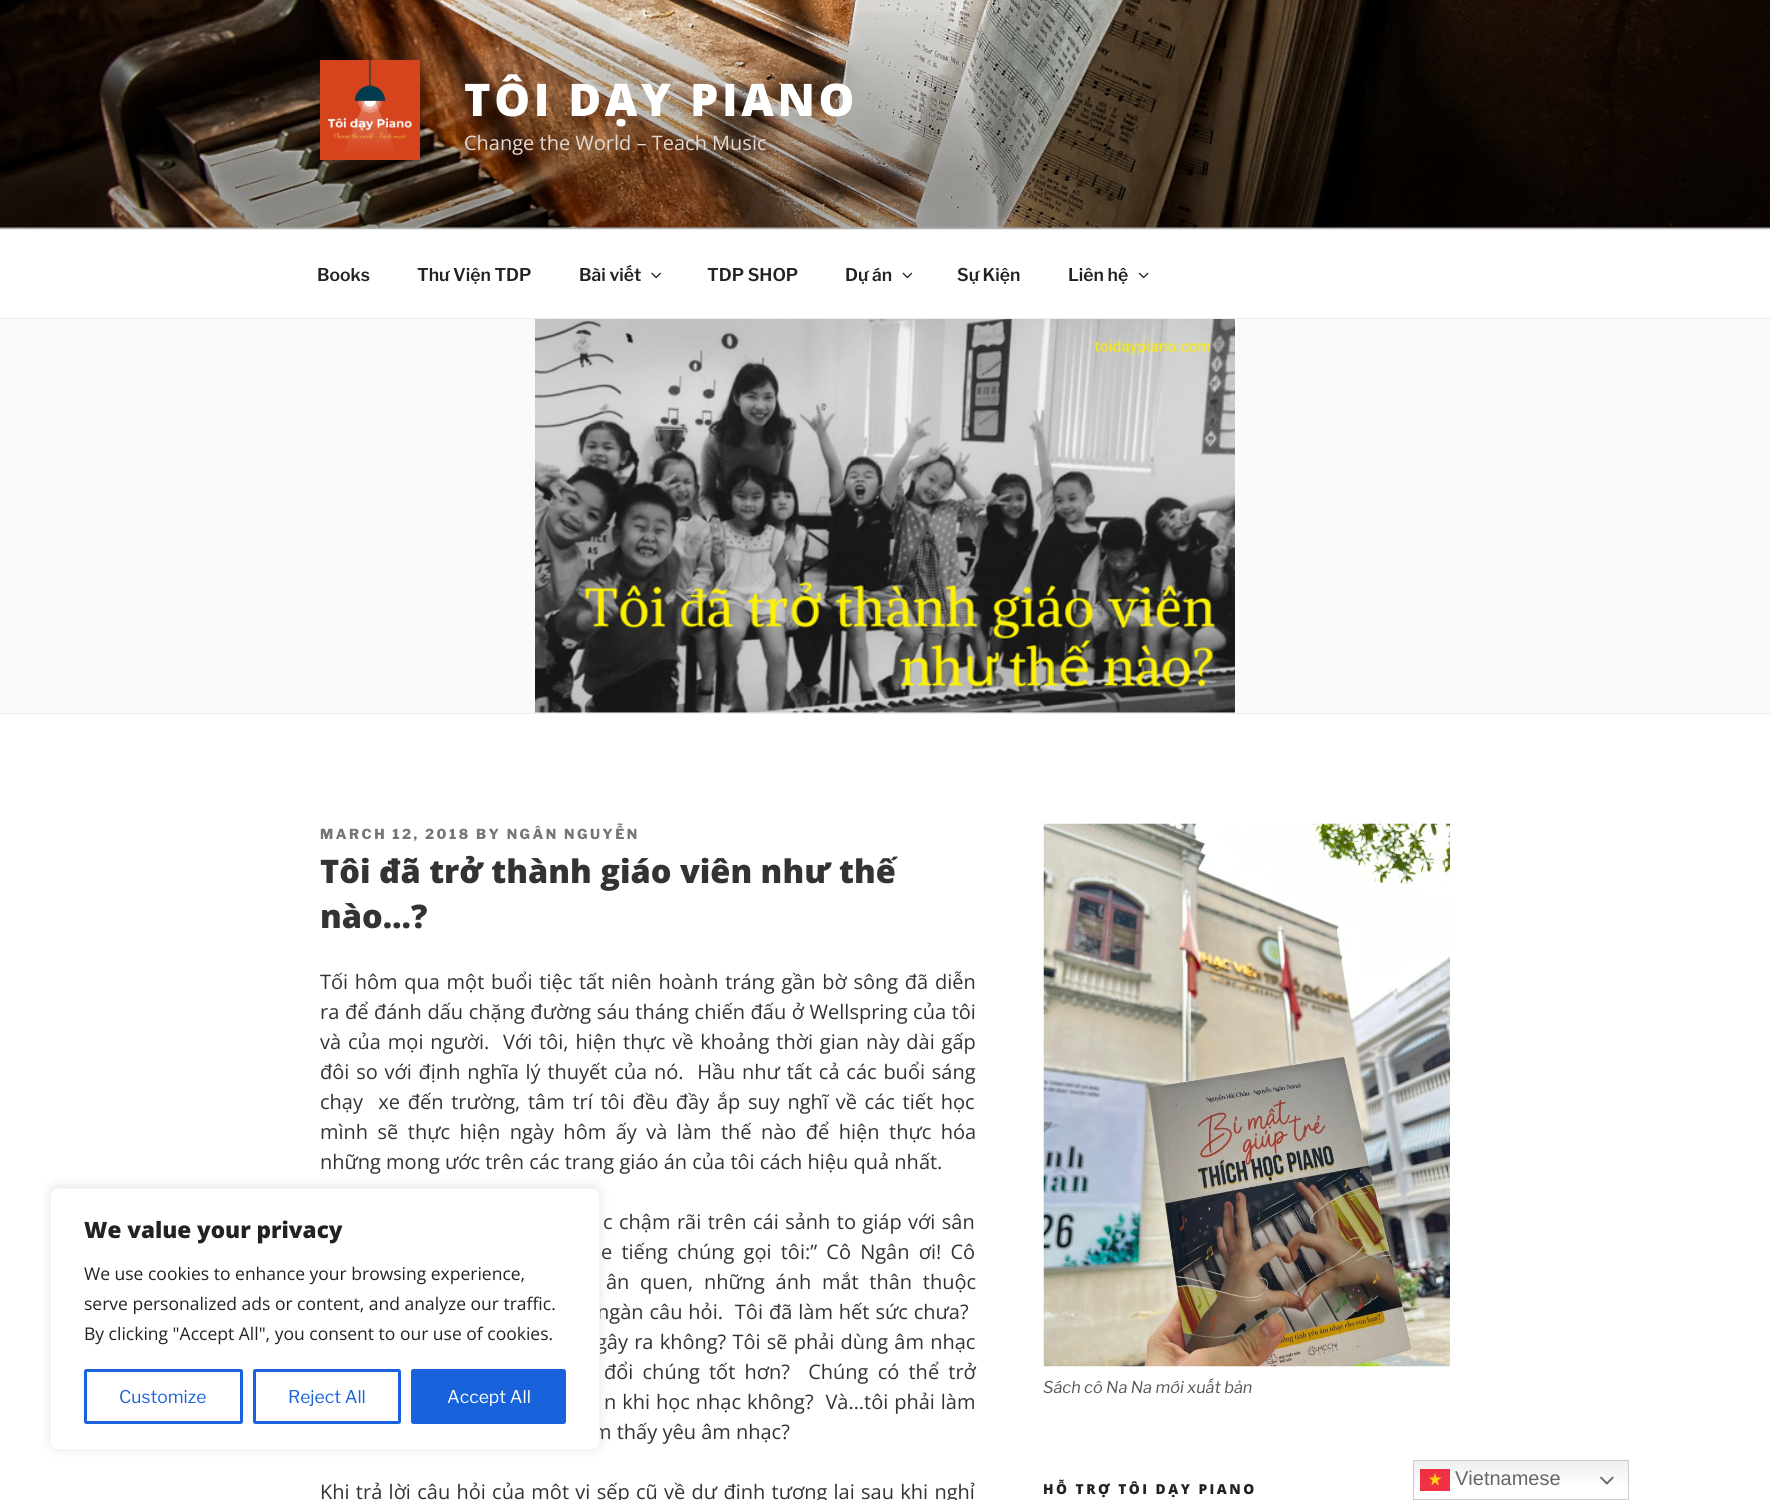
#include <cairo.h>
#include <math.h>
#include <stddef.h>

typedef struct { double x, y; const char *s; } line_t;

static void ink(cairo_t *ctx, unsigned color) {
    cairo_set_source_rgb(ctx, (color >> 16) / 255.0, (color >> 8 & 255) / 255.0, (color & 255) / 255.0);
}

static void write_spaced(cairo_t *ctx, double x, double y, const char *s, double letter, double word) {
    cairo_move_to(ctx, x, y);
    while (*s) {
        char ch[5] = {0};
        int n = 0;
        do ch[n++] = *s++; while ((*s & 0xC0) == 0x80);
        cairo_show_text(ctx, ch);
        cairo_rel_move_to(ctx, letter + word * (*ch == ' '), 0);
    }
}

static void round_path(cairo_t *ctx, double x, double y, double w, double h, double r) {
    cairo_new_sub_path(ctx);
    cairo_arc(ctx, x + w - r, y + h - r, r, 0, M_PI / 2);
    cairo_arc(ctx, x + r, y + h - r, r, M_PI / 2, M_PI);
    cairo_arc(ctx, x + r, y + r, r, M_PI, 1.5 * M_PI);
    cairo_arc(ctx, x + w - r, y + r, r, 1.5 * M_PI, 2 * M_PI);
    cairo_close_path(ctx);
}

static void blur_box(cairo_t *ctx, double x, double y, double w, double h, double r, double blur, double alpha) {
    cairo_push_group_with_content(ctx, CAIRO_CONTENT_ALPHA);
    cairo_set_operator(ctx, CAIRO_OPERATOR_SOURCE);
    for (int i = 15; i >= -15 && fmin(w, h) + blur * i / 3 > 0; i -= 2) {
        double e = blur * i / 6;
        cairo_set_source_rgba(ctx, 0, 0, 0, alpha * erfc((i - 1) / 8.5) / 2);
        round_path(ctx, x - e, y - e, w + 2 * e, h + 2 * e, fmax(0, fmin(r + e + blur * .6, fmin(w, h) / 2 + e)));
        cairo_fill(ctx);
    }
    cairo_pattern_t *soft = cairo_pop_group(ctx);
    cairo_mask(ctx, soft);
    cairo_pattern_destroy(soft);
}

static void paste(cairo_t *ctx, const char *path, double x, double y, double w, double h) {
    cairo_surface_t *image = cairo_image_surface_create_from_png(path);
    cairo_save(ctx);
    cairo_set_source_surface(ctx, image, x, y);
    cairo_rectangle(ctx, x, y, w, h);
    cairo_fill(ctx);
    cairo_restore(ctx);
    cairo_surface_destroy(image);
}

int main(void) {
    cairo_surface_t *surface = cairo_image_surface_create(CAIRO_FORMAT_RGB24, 1770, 1500);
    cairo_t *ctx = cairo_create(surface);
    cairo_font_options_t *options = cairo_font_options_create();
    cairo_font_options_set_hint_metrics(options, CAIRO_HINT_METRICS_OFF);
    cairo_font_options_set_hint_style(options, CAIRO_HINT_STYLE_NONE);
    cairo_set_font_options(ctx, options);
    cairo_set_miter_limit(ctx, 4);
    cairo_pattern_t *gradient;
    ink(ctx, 0xFFFFFF);
    cairo_paint(ctx);
    ink(ctx, 0xFAFAFA);
    cairo_rectangle(ctx, 0, 227, 1770, 2);
    cairo_fill(ctx);
    paste(ctx, "media/1.png", 0, 0, 1770, 228);
    gradient = cairo_pattern_create_linear(885, 0, 885, 229);
    cairo_pattern_add_color_stop_rgba(gradient, 0, 0, 0, 0, 0);
    cairo_pattern_add_color_stop_rgba(gradient, 0.75, 0, 0, 0, 0.3);
    cairo_pattern_add_color_stop_rgba(gradient, 1, 0, 0, 0, 0.3);
    cairo_set_source(ctx, gradient);
    cairo_pattern_destroy(gradient);
    cairo_rectangle(ctx, 0, 12, 1770, 217);
    cairo_fill(ctx);
    paste(ctx, "media/2.png", 320, 60, 100, 100);
    cairo_select_font_face(ctx, "Open Sans ExtraBold", CAIRO_FONT_SLANT_NORMAL, CAIRO_FONT_WEIGHT_NORMAL);
    cairo_set_font_size(ctx, 45);
    ink(ctx, 0xFFFFFF);
    write_spaced(ctx, 464, 116, "TÔI DẠY PIANO", 3.6, 0);
    cairo_select_font_face(ctx, "Open Sans", CAIRO_FONT_SLANT_NORMAL, CAIRO_FONT_WEIGHT_NORMAL);
    cairo_set_font_size(ctx, 20);
    ink(ctx, 0xE1D9D4);
    cairo_move_to(ctx, 464, 150);
    cairo_show_text(ctx, "Change the World – Teach Music");
    ink(ctx, 0xEEEEEE);
    cairo_rectangle(ctx, 0, 229, 1770, 1);
    cairo_fill(ctx);
    cairo_rectangle(ctx, 0, 318, 1770, 1);
    cairo_fill(ctx);
    cairo_select_font_face(ctx, "Libre Franklin SemiBold", CAIRO_FONT_SLANT_NORMAL, CAIRO_FONT_WEIGHT_NORMAL);
    cairo_set_font_size(ctx, 17.5);
    ink(ctx, 0x222222);
    {
        static const line_t items[] = {
            {317, 281, "Books"},
            {417, 281, "Thư Viện TDP"},
            {579, 281, "Bài viết"},
        };
        for (size_t i = 0; i < sizeof items / sizeof *items; i++) {
            cairo_move_to(ctx, items[i].x, items[i].y);
            cairo_show_text(ctx, items[i].s);
        }
    }
    paste(ctx, "media/3.png", 651, 272, 10, 7);
    cairo_move_to(ctx, 707, 281);
    cairo_show_text(ctx, "TDP SHOP");
    cairo_move_to(ctx, 845, 281);
    cairo_show_text(ctx, "Dự án");
    paste(ctx, "media/4.png", 902, 272, 11, 7);
    cairo_move_to(ctx, 957, 281);
    cairo_show_text(ctx, "Sự Kiện");
    cairo_move_to(ctx, 1068, 281);
    cairo_show_text(ctx, "Liên hệ");
    paste(ctx, "media/5.png", 1138, 272, 11, 7);
    ink(ctx, 0xFAFAFA);
    cairo_rectangle(ctx, 0, 319, 1770, 394);
    cairo_fill(ctx);
    ink(ctx, 0xEEEEEE);
    cairo_rectangle(ctx, 0, 713, 1770, 1);
    cairo_fill(ctx);
    paste(ctx, "media/6.png", 535, 319, 700, 394);
    cairo_select_font_face(ctx, "Libre Franklin ExtraBold", CAIRO_FONT_SLANT_NORMAL, CAIRO_FONT_WEIGHT_NORMAL);
    cairo_set_font_size(ctx, 13.75);
    ink(ctx, 0x767676);
    write_spaced(ctx, 320, 839, "MARCH 12, 2018 BY NGÂN NGUYỄN", 2.5, 0);
    cairo_select_font_face(ctx, "Open Sans ExtraBold", CAIRO_FONT_SLANT_NORMAL, CAIRO_FONT_WEIGHT_NORMAL);
    cairo_set_font_size(ctx, 32.5);
    ink(ctx, 0x333333);
    cairo_move_to(ctx, 320, 883);
    cairo_show_text(ctx, "Tôi đã trở thành giáo viên như thế");
    cairo_move_to(ctx, 320, 928);
    cairo_show_text(ctx, "nào…?");
    cairo_select_font_face(ctx, "Open Sans", CAIRO_FONT_SLANT_NORMAL, CAIRO_FONT_WEIGHT_NORMAL);
    cairo_set_font_size(ctx, 20);
    write_spaced(ctx, 320, 989, "Tối hôm qua một buổi tiệc tất niên hoành tráng gần bờ sông đã diễn", 0, 1.5);
    write_spaced(ctx, 320, 1019, "ra để đánh dấu chặng đường sáu tháng chiến đấu ở Wellspring của tôi", 0, 0.4);
    write_spaced(ctx, 320, 1049, "và của mọi người.  Với tôi, hiện thực về khoảng thời gian này dài gấp", 0, 1.7);
    write_spaced(ctx, 320, 1079, "đôi so với định nghĩa lý thuyết của nó.  Hầu như tất cả các buổi sáng", 0, 1.6);
    write_spaced(ctx, 320, 1109, "chạy  xe đến trường, tâm trí tôi đều đầy ắp suy nghĩ về các tiết học", 0, 2.5);
    write_spaced(ctx, 320, 1139, "mình sẽ thực hiện ngày hôm ấy và làm thế nào để hiện thực hóa", 0, 4.25);
    cairo_move_to(ctx, 320, 1169);
    cairo_show_text(ctx, "những mong ước trên các trang giáo án của tôi cách hiệu quả nhất.");
    write_spaced(ctx, 603, 1229, "c chậm rãi trên cái sảnh to giáp với sân", 0, 1.25);
    write_spaced(ctx, 601, 1259, "e tiếng chúng gọi tôi:” Cô Ngân ơi! Cô", 0, 4);
    write_spaced(ctx, 606, 1289, "ân quen, những ánh mắt thân thuộc", 0, 5.5);
    write_spaced(ctx, 597, 1319, "ngàn câu hỏi.  Tôi đã làm hết sức chưa?", 0, 0.75);
    write_spaced(ctx, 596, 1349, "gây ra không? Tôi sẽ phải dùng âm nhạc", 0, 1);
    write_spaced(ctx, 604, 1379, "đổi chúng tốt hơn?  Chúng có thể trở", 0, 4);
    write_spaced(ctx, 604, 1409, "n khi học nhạc không?  Và…tôi phải làm", 0, 0.75);
    cairo_move_to(ctx, 593, 1439);
    cairo_show_text(ctx, "m thấy yêu âm nhạc?");
    write_spaced(ctx, 320, 1499, "Khi trả lời câu hỏi của một vị sếp cũ về dự định tương lai sau khi nghỉ", 0, 1.1);
    paste(ctx, "media/7.png", 1043, 823, 407, 544);
    cairo_select_font_face(ctx, "Libre Franklin", CAIRO_FONT_SLANT_ITALIC, CAIRO_FONT_WEIGHT_NORMAL);
    cairo_set_font_size(ctx, 16.25);
    ink(ctx, 0x555555);
    cairo_move_to(ctx, 1043, 1393);
    cairo_show_text(ctx, "Sách cô Na Na mới xuất bản");
    cairo_select_font_face(ctx, "Open Sans ExtraBold", CAIRO_FONT_SLANT_NORMAL, CAIRO_FONT_WEIGHT_NORMAL);
    cairo_set_font_size(ctx, 13.75);
    ink(ctx, 0x222222);
    write_spaced(ctx, 1043, 1494, "HỖ TRỢ TÔI DẠY PIANO", 2.5, 0);
    ink(ctx, 0xACABAB);
    blur_box(ctx, 50, 1186, 550, 263, 8, 6, 0.3);
    ink(ctx, 0xFFFFFF);
    round_path(ctx, 50.5, 1188.5, 549, 261, 7.5);
    cairo_fill_preserve(ctx);
    ink(ctx, 0xF4F4F4);
    cairo_set_line_width(ctx, 1);
    cairo_stroke(ctx);
    cairo_set_font_size(ctx, 22.5);
    ink(ctx, 0x222222);
    cairo_move_to(ctx, 84, 1238);
    cairo_show_text(ctx, "We value your privacy");
    cairo_select_font_face(ctx, "Open Sans", CAIRO_FONT_SLANT_NORMAL, CAIRO_FONT_WEIGHT_NORMAL);
    cairo_set_font_size(ctx, 17.5);
    {
        static const line_t items[] = {
            {84, 1280, "We use cookies to enhance your browsing experience,"},
            {84, 1310, "serve personalized ads or content, and analyze our traffic."},
            {84, 1340, "By clicking \"Accept All\", you consent to our use of cookies."},
        };
        for (size_t i = 0; i < sizeof items / sizeof *items; i++) {
            cairo_move_to(ctx, items[i].x, items[i].y);
            cairo_show_text(ctx, items[i].s);
        }
    }
    round_path(ctx, 85.5, 1370.5, 156, 52, 1);
    ink(ctx, 0x1863DC);
    cairo_set_line_width(ctx, 3);
    cairo_stroke(ctx);
    cairo_select_font_face(ctx, "Libre Franklin Thin", CAIRO_FONT_SLANT_NORMAL, CAIRO_FONT_WEIGHT_NORMAL);
    cairo_move_to(ctx, 119, 1403);
    cairo_show_text(ctx, "Customize");
    round_path(ctx, 254.5, 1370.5, 145, 52, 1);
    cairo_stroke(ctx);
    cairo_move_to(ctx, 288, 1403);
    cairo_show_text(ctx, "Reject All");
    round_path(ctx, 412.5, 1370.5, 152, 52, 1);
    cairo_fill_preserve(ctx);
    cairo_stroke(ctx);
    ink(ctx, 0xFFFFFF);
    cairo_move_to(ctx, 447, 1403);
    cairo_show_text(ctx, "Accept All");
    gradient = cairo_pattern_create_linear(1521, 1460, 1521, 1500);
    cairo_pattern_add_color_stop_rgba(gradient, 0, 0.937, 0.937, 0.937, 1);
    cairo_pattern_add_color_stop_rgba(gradient, 0.7, 1, 1, 1, 1);
    cairo_set_source(ctx, gradient);
    cairo_pattern_destroy(gradient);
    cairo_rectangle(ctx, 1414, 1461, 214, 23);
    cairo_fill(ctx);
    gradient = cairo_pattern_create_linear(1521, 1460, 1521, 1500);
    cairo_pattern_add_color_stop_rgba(gradient, 0, 0.929, 0.188, 0.255, 1);
    cairo_pattern_add_color_stop_rgba(gradient, 0.7, 0.941, 0.2, 0.267, 1);
    cairo_set_source(ctx, gradient);
    cairo_pattern_destroy(gradient);
    cairo_rectangle(ctx, 1420, 1469, 30, 22);
    cairo_fill(ctx);
    cairo_rectangle(ctx, 1413.5, 1460.5, 215, 39);
    ink(ctx, 0xCCCCCC);
    cairo_set_line_width(ctx, 1);
    cairo_stroke(ctx);
    ink(ctx, 0xFCD60D);
    cairo_set_fill_rule(ctx, CAIRO_FILL_RULE_EVEN_ODD);
    cairo_new_path(ctx);
    cairo_move_to(ctx, 1439, 1485.5);
    cairo_line_to(ctx, 1435, 1482.5);
    cairo_line_to(ctx, 1431.5, 1485.5);
    cairo_line_to(ctx, 1432.5, 1480.5);
    cairo_line_to(ctx, 1429, 1477.5);
    cairo_line_to(ctx, 1433.5, 1477.5);
    cairo_line_to(ctx, 1435, 1473);
    cairo_line_to(ctx, 1436.5, 1477.5);
    cairo_line_to(ctx, 1441.5, 1477.5);
    cairo_line_to(ctx, 1437.5, 1480.5);
    cairo_close_path(ctx);
    cairo_fill(ctx);
    cairo_select_font_face(ctx, "Liberation Sans", CAIRO_FONT_SLANT_NORMAL, CAIRO_FONT_WEIGHT_NORMAL);
    cairo_set_font_size(ctx, 20);
    ink(ctx, 0x666666);
    cairo_move_to(ctx, 1455, 1485);
    cairo_show_text(ctx, "Vietnamese");
    paste(ctx, "media/8.png", 1600, 1476, 14, 9);
    cairo_surface_write_to_png(surface, "image.png");
    cairo_font_options_destroy(options);
    cairo_destroy(ctx);
    cairo_surface_destroy(surface);
    return 0;
}
